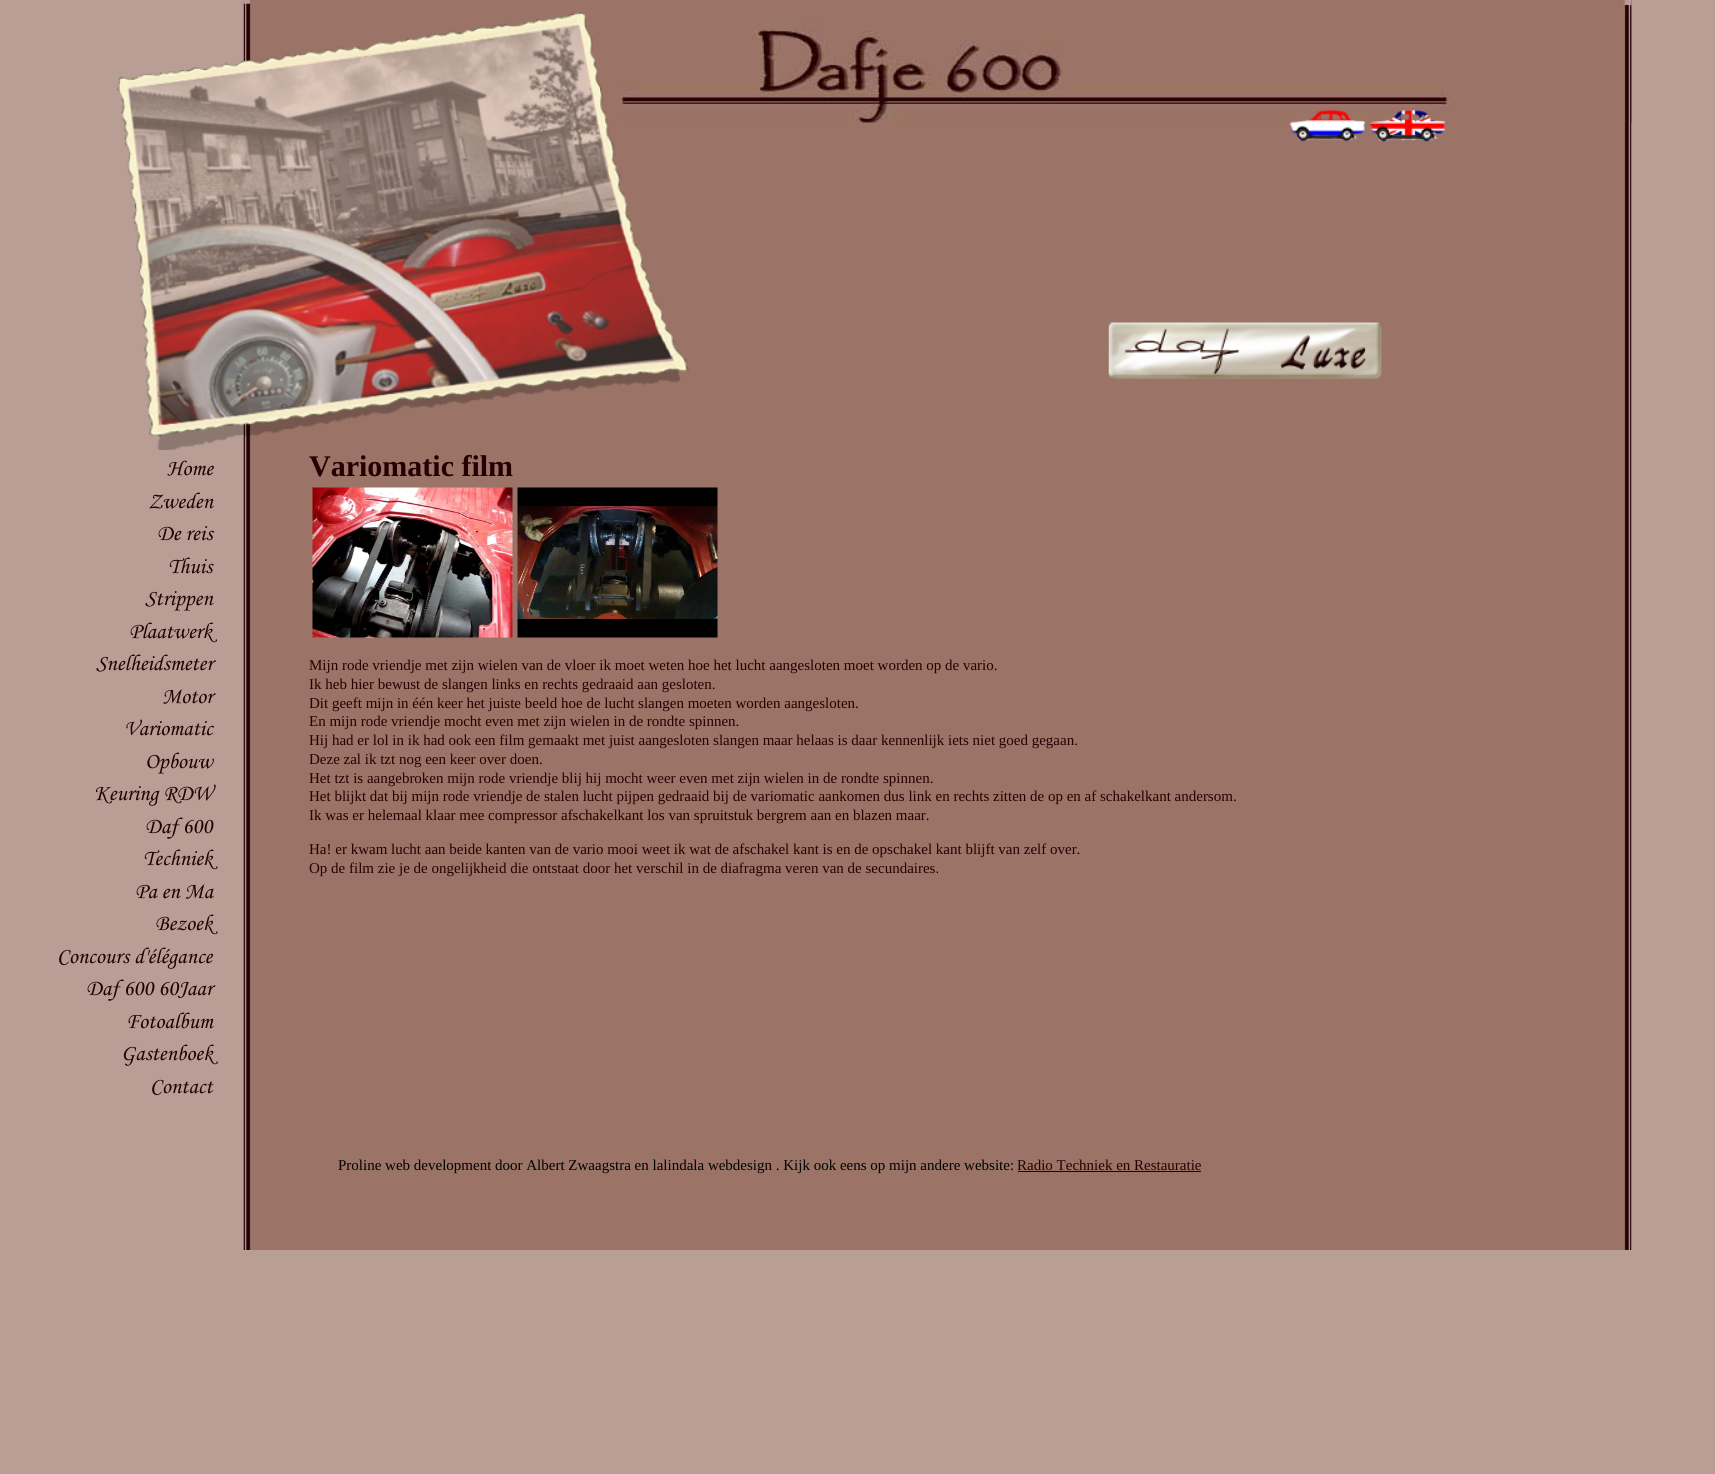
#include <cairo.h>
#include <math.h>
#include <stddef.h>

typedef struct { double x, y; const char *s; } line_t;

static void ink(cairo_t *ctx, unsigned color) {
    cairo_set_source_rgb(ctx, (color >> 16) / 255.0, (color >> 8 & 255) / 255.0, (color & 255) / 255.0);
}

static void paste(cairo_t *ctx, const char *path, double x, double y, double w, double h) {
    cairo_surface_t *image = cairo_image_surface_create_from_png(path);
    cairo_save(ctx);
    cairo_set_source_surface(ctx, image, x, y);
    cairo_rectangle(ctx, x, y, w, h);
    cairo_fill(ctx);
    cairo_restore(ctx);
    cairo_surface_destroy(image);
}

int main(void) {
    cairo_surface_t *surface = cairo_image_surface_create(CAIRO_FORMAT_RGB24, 1715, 1474);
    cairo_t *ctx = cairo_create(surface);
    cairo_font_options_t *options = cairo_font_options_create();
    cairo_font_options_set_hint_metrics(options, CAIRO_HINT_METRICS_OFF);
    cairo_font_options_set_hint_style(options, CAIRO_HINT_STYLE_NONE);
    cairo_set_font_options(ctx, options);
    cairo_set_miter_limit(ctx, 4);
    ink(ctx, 0xB99E95);
    cairo_paint(ctx);
    paste(ctx, "media/1.png", 241, 0, 1391, 1250);
    paste(ctx, "media/2.png", 240, 0, 1392, 123);
    paste(ctx, "media/3.png", 116, 12, 573, 438);
    paste(ctx, "media/4.png", 1290, 110, 75, 32);
    paste(ctx, "media/5.png", 1370, 110, 75, 32);
    paste(ctx, "media/6.png", 1108, 322, 274, 57);
    cairo_select_font_face(ctx, "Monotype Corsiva", CAIRO_FONT_SLANT_ITALIC, CAIRO_FONT_WEIGHT_NORMAL);
    cairo_set_font_size(ctx, 22.5);
    ink(ctx, 0x250000);
    {
        static const line_t items[] = {
            {167, 475, "Home"},
            {148, 508, "Zweden"},
            {157, 540, "De reis"},
            {168, 573, "Thuis"},
            {145, 605, "Strippen"},
            {129, 638, "Plaatwerk"},
            {96, 670, "Snelheidsmeter"},
            {162, 703, "Motor"},
            {124, 735, "Variomatic"},
            {145, 768, "Opbouw"},
            {94, 800, "Keuring RDW"},
            {145, 833, "Daf 600"},
            {143, 865, "Techniek"},
            {135, 898, "Pa en Ma"},
            {155, 930, "Bezoek"},
            {57, 963, "Concours d'élégance"},
            {86, 995, "Daf 600 60Jaar"},
            {126, 1028, "Fotoalbum"},
            {121, 1060, "Gastenboek"},
            {150, 1093, "Contact"},
        };
        for (size_t i = 0; i < sizeof items / sizeof *items; i++) {
            cairo_move_to(ctx, items[i].x, items[i].y);
            cairo_show_text(ctx, items[i].s);
        }
    }
    cairo_select_font_face(ctx, "Liberation Serif", CAIRO_FONT_SLANT_NORMAL, CAIRO_FONT_WEIGHT_BOLD);
    cairo_set_font_size(ctx, 30);
    cairo_move_to(ctx, 309, 476);
    cairo_show_text(ctx, "Variomatic film");
    paste(ctx, "media/7.png", 312, 487, 201, 151);
    paste(ctx, "media/8.png", 517, 487, 201, 151);
    cairo_select_font_face(ctx, "Liberation Serif", CAIRO_FONT_SLANT_NORMAL, CAIRO_FONT_WEIGHT_NORMAL);
    cairo_set_font_size(ctx, 15);
    {
        static const line_t items[] = {
            {309, 670, "Mijn rode vriendje met zijn wielen van de vloer ik moet weten hoe het lucht aangesloten moet worden op de vario."},
            {309, 689, "Ik heb hier bewust de slangen links en rechts gedraaid aan gesloten."},
            {309, 708, "Dit geeft mijn in één keer het juiste beeld hoe de lucht slangen moeten worden aangesloten."},
            {309, 726, "En mijn rode vriendje mocht even met zijn wielen in de rondte spinnen."},
            {309, 745, "Hij had er lol in ik had ook een film gemaakt met juist aangesloten slangen maar helaas is daar kennenlijk iets niet goed gegaan."},
            {309, 764, "Deze zal ik tzt nog een keer over doen."},
            {309, 783, "Het tzt is aangebroken mijn rode vriendje blij hij mocht weer even met zijn wielen in de rondte spinnen."},
            {309, 801, "Het blijkt dat bij mijn rode vriendje de stalen lucht pijpen gedraaid bij de variomatic aankomen dus link en rechts zitten de op en af schakelkant andersom."},
            {309, 820, "Ik was er helemaal klaar mee compressor afschakelkant los van spruitstuk bergrem aan en blazen maar."},
            {309, 854, "Ha! er kwam lucht aan beide kanten van de vario mooi weet ik wat de afschakel kant is en de opschakel kant blijft van zelf over."},
            {309, 873, "Op de film zie je de ongelijkheid die ontstaat door het verschil in de diafragma veren van de secundaires."},
        };
        for (size_t i = 0; i < sizeof items / sizeof *items; i++) {
            cairo_move_to(ctx, items[i].x, items[i].y);
            cairo_show_text(ctx, items[i].s);
        }
    }
    ink(ctx, 0x000000);
    cairo_move_to(ctx, 338, 1170);
    cairo_show_text(ctx, "Proline web development door Albert Zwaagstra en lalindala webdesign . Kijk ook eens op mijn andere website:");
    ink(ctx, 0x250000);
    cairo_move_to(ctx, 1017, 1170);
    cairo_show_text(ctx, "Radio Techniek en Restauratie");
    cairo_rectangle(ctx, 1018, 1171, 183, 1);
    cairo_fill(ctx);
    cairo_surface_write_to_png(surface, "image.png");
    cairo_font_options_destroy(options);
    cairo_destroy(ctx);
    cairo_surface_destroy(surface);
    return 0;
}
